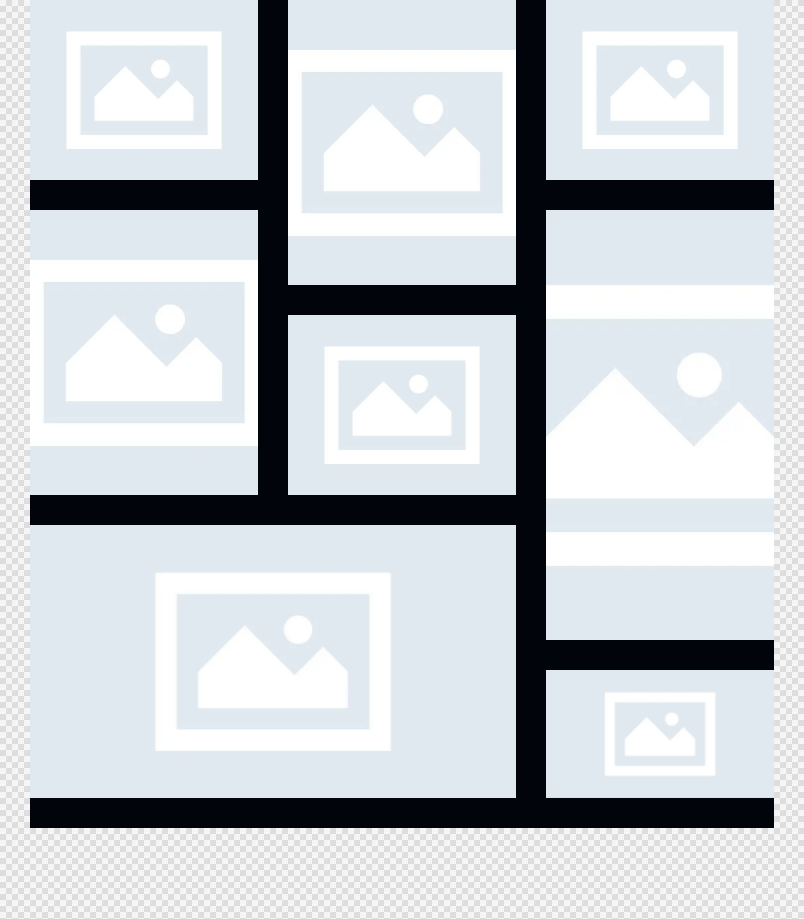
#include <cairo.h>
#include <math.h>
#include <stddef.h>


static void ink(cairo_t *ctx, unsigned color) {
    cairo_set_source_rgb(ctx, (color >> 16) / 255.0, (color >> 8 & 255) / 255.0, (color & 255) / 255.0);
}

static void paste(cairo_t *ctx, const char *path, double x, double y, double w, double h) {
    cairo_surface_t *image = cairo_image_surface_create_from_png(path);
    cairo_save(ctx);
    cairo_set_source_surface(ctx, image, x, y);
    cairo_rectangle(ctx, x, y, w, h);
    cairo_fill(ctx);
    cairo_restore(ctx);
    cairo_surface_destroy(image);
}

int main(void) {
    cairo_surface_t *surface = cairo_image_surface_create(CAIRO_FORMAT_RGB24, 804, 919);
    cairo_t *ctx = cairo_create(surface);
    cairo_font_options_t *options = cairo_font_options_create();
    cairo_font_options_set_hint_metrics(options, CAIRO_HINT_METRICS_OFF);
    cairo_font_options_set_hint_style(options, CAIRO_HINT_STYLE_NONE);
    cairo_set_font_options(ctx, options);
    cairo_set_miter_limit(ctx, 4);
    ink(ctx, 0xFFFFFF);
    cairo_paint(ctx);
    paste(ctx, "media/1.png", 0, 0, 804, 919);
    ink(ctx, 0x02040B);
    cairo_rectangle(ctx, 30, 0, 744, 828);
    cairo_fill(ctx);
    paste(ctx, "media/2.png", 30, 0, 228, 180);
    paste(ctx, "media/3.png", 288, 0, 228, 285);
    paste(ctx, "media/2.png", 546, 0, 228, 180);
    paste(ctx, "media/3.png", 30, 210, 228, 285);
    paste(ctx, "media/2.png", 288, 315, 228, 180);
    paste(ctx, "media/4.png", 546, 210, 228, 430);
    paste(ctx, "media/5.png", 30, 525, 486, 273);
    paste(ctx, "media/6.png", 546, 670, 228, 128);
    cairo_surface_write_to_png(surface, "image.png");
    cairo_font_options_destroy(options);
    cairo_destroy(ctx);
    cairo_surface_destroy(surface);
    return 0;
}
